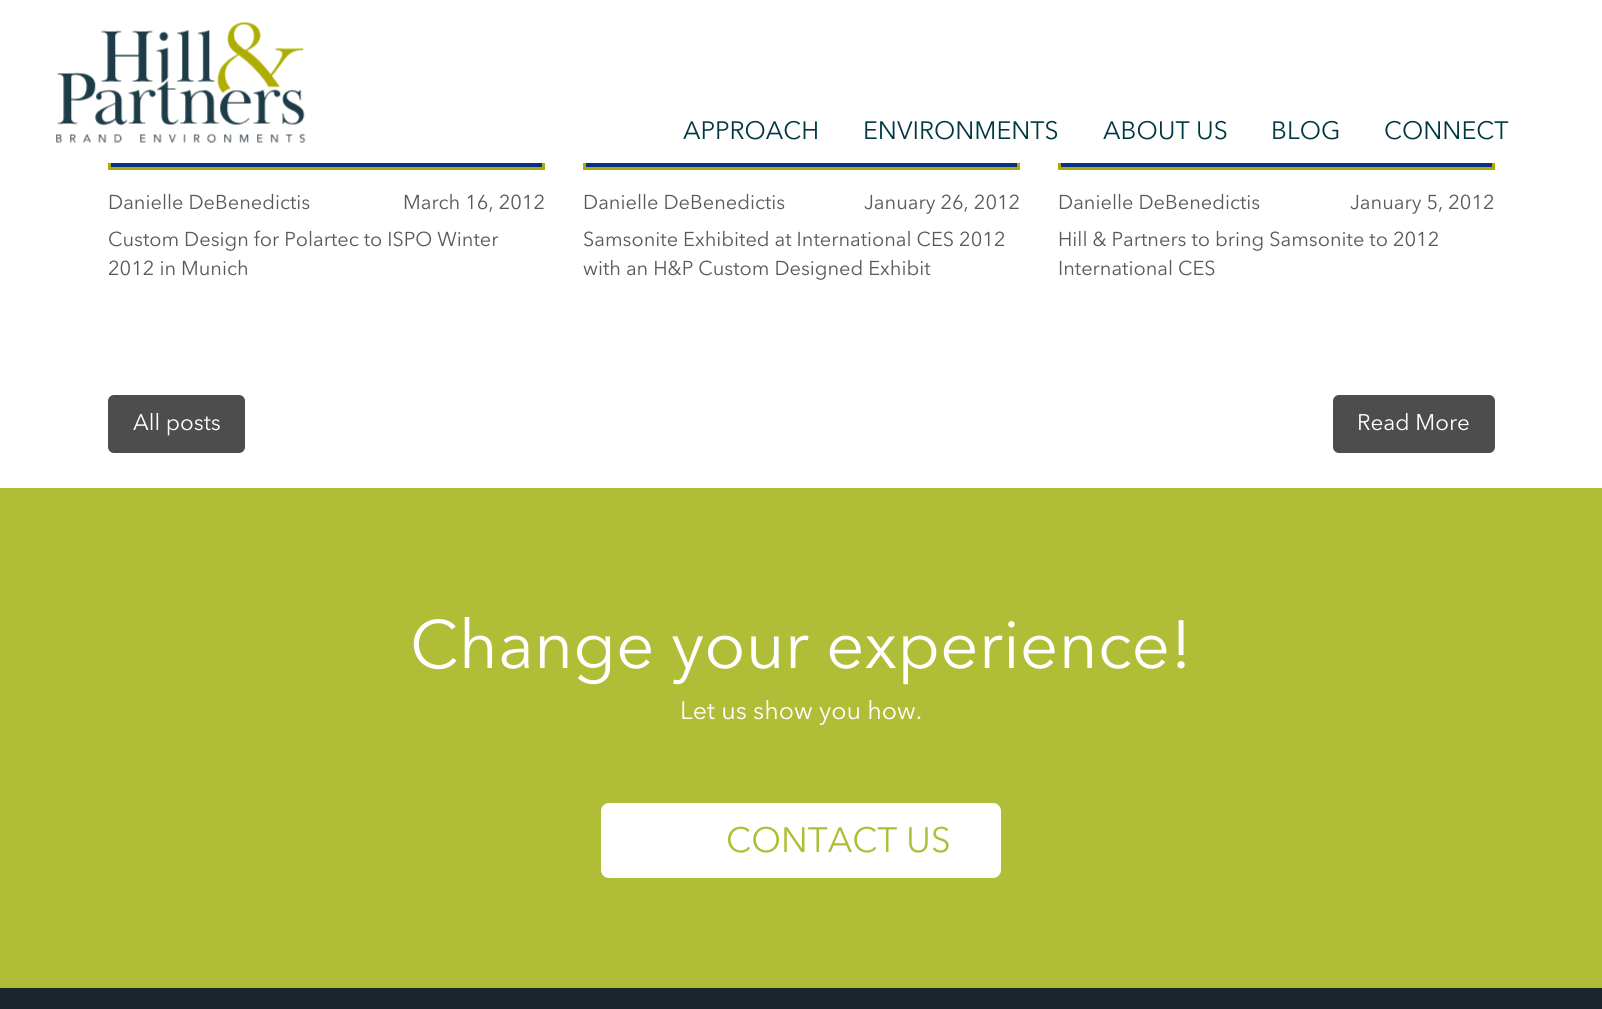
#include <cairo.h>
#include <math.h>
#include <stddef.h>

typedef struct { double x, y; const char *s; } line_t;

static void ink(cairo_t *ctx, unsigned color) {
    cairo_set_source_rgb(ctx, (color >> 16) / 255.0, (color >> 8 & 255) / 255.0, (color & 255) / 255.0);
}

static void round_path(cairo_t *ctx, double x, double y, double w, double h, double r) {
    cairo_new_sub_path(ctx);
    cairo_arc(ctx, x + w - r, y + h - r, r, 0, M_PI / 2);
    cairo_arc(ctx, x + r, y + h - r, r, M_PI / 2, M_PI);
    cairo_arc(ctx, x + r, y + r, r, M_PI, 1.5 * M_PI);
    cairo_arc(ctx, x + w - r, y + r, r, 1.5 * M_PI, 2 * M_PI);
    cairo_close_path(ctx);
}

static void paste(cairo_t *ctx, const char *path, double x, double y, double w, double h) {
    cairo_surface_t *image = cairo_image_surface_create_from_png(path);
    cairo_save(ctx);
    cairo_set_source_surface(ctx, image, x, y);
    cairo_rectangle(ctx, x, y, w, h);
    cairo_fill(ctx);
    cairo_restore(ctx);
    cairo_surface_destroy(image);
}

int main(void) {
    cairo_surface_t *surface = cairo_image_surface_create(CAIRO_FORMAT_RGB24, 1602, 1009);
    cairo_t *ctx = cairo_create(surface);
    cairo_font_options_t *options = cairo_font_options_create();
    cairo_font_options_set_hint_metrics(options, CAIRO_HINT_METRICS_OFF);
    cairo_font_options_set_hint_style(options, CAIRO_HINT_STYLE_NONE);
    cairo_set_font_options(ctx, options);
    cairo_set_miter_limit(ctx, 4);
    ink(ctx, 0xFFFFFF);
    cairo_paint(ctx);
    ink(ctx, 0x092F87);
    cairo_rectangle(ctx, 111, 163, 431, 4);
    cairo_fill(ctx);
    cairo_rectangle(ctx, 109.5, -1.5, 434, 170);
    ink(ctx, 0xAAAD00);
    cairo_set_line_width(ctx, 3);
    cairo_stroke(ctx);
    ink(ctx, 0x092F87);
    cairo_rectangle(ctx, 586, 163, 431, 4);
    cairo_fill(ctx);
    cairo_rectangle(ctx, 584.5, -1.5, 434, 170);
    ink(ctx, 0xAAAD00);
    cairo_stroke(ctx);
    ink(ctx, 0x092F87);
    cairo_rectangle(ctx, 1061, 163, 431, 4);
    cairo_fill(ctx);
    cairo_rectangle(ctx, 1059.5, -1.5, 434, 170);
    ink(ctx, 0xAAAD00);
    cairo_stroke(ctx);
    ink(ctx, 0xFFFFFF);
    cairo_rectangle(ctx, 108, 0, 1387, 163);
    cairo_fill(ctx);
    paste(ctx, "media/1.png", 56, 22, 250, 121);
    cairo_select_font_face(ctx, "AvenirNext", CAIRO_FONT_SLANT_NORMAL, CAIRO_FONT_WEIGHT_NORMAL);
    cairo_set_font_size(ctx, 25);
    ink(ctx, 0x003841);
    {
        static const line_t items[] = {
            {683, 139, "APPROACH"},
            {863, 139, "ENVIRONMENTS"},
            {1103, 139, "ABOUT US"},
            {1271, 139, "BLOG"},
            {1384, 139, "CONNECT"},
        };
        for (size_t i = 0; i < sizeof items / sizeof *items; i++) {
            cairo_move_to(ctx, items[i].x, items[i].y);
            cairo_show_text(ctx, items[i].s);
        }
    }
    cairo_set_font_size(ctx, 20);
    ink(ctx, 0x58595B);
    {
        static const line_t items[] = {
            {108, 209, "Danielle DeBenedictis"},
            {403, 209, "March 16, 2012"},
            {108, 246, "Custom Design for Polartec to ISPO Winter"},
            {108, 275, "2012 in Munich"},
            {583, 209, "Danielle DeBenedictis"},
            {864, 209, "January 26, 2012"},
            {583, 246, "Samsonite Exhibited at International CES 2012"},
            {583, 275, "with an H&P Custom Designed Exhibit"},
            {1058, 209, "Danielle DeBenedictis"},
            {1350, 209, "January 5, 2012"},
            {1058, 246, "Hill & Partners to bring Samsonite to 2012"},
            {1058, 275, "International CES"},
        };
        for (size_t i = 0; i < sizeof items / sizeof *items; i++) {
            cairo_move_to(ctx, items[i].x, items[i].y);
            cairo_show_text(ctx, items[i].s);
        }
    }
    ink(ctx, 0x4D4D4D);
    round_path(ctx, 108, 395, 137, 58, 6);
    cairo_fill(ctx);
    cairo_set_font_size(ctx, 22.5);
    ink(ctx, 0xFFFFFF);
    cairo_move_to(ctx, 133, 430);
    cairo_show_text(ctx, "All posts");
    ink(ctx, 0x4D4D4D);
    round_path(ctx, 1333, 395, 162, 58, 6);
    cairo_fill(ctx);
    ink(ctx, 0xFFFFFF);
    cairo_move_to(ctx, 1357, 430);
    cairo_show_text(ctx, "Read More");
    ink(ctx, 0xB0BD36);
    cairo_rectangle(ctx, 0, 488, 1602, 500);
    cairo_fill(ctx);
    cairo_set_font_size(ctx, 67.5);
    ink(ctx, 0xFFFFFF);
    cairo_move_to(ctx, 410, 668);
    cairo_show_text(ctx, "Change your experience!");
    cairo_set_font_size(ctx, 25);
    cairo_move_to(ctx, 680, 719);
    cairo_show_text(ctx, "Let us show you how.");
    round_path(ctx, 601, 803, 400, 75, 8);
    cairo_fill(ctx);
    cairo_set_font_size(ctx, 35);
    ink(ctx, 0xB0BD36);
    cairo_move_to(ctx, 726, 852);
    cairo_show_text(ctx, "CONTACT US");
    ink(ctx, 0x1B252D);
    cairo_rectangle(ctx, 0, 988, 1602, 21);
    cairo_fill(ctx);
    cairo_surface_write_to_png(surface, "image.png");
    cairo_font_options_destroy(options);
    cairo_destroy(ctx);
    cairo_surface_destroy(surface);
    return 0;
}
